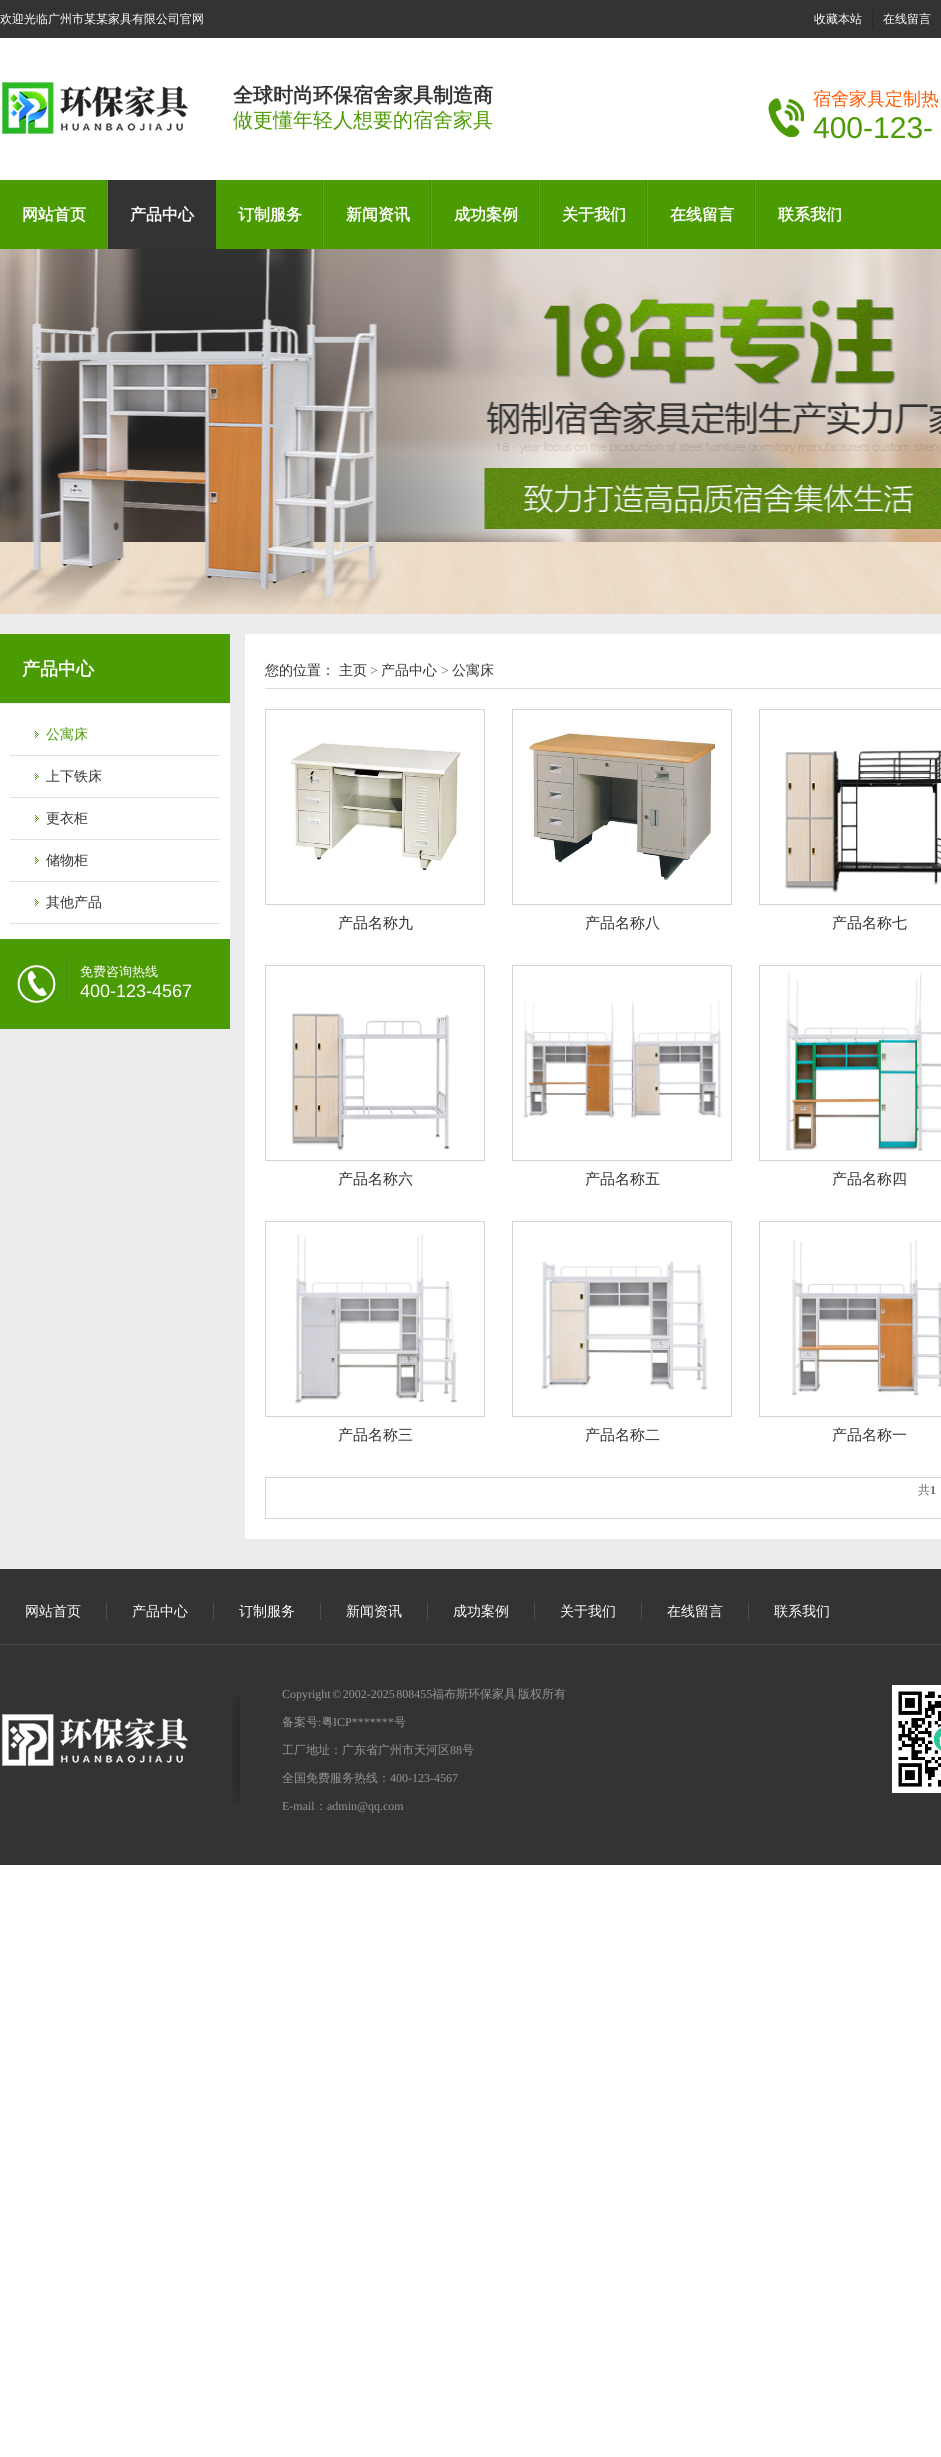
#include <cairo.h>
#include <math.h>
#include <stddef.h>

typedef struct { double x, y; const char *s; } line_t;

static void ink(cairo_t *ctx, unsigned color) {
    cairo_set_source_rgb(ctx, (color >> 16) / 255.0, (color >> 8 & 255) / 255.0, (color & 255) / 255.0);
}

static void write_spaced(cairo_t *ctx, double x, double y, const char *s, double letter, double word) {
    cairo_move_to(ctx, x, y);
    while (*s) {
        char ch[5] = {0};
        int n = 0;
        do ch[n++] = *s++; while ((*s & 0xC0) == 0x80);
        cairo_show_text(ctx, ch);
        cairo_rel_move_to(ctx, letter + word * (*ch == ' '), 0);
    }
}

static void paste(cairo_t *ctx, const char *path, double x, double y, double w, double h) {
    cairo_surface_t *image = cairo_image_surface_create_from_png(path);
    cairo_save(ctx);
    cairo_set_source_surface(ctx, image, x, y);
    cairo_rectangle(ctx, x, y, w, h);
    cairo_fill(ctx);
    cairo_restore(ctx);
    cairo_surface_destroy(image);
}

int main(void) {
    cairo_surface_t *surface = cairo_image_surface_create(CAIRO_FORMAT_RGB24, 941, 2457);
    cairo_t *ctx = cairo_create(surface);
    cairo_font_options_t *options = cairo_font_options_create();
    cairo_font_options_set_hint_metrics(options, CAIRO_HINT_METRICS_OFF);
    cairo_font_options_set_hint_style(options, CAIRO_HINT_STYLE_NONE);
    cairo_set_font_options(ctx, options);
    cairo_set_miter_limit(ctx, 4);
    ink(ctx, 0xFFFFFF);
    cairo_paint(ctx);
    ink(ctx, 0x333333);
    cairo_rectangle(ctx, 0, 0, 941, 38);
    cairo_fill(ctx);
    cairo_select_font_face(ctx, "WenQuanYi Zen Hei Medium", CAIRO_FONT_SLANT_NORMAL, CAIRO_FONT_WEIGHT_NORMAL);
    cairo_set_font_size(ctx, 12);
    ink(ctx, 0xFFFFFF);
    cairo_move_to(ctx, 0, 23);
    cairo_show_text(ctx, "欢迎光临广州市某某家具有限公司官网");
    cairo_new_path(ctx);
    cairo_move_to(ctx, 872.5, 12);
    cairo_line_to(ctx, 872.5, 27);
    ink(ctx, 0x1F2025);
    cairo_set_line_width(ctx, 1);
    cairo_set_dash(ctx, (double[]){1, 1}, 2, 0);
    cairo_stroke(ctx);
    ink(ctx, 0xFFFFFF);
    cairo_move_to(ctx, 814, 23);
    cairo_show_text(ctx, "收藏本站");
    cairo_move_to(ctx, 883, 23);
    cairo_show_text(ctx, "在线留言");
    paste(ctx, "media/1.png", 2, 82, 186, 52);
    cairo_select_font_face(ctx, "WenQuanYi Zen Hei", CAIRO_FONT_SLANT_NORMAL, CAIRO_FONT_WEIGHT_BOLD);
    cairo_set_font_size(ctx, 20);
    ink(ctx, 0x333333);
    cairo_move_to(ctx, 233, 102);
    cairo_show_text(ctx, "全球时尚环保宿舍家具制造商");
    cairo_select_font_face(ctx, "WenQuanYi Zen Hei Medium", CAIRO_FONT_SLANT_NORMAL, CAIRO_FONT_WEIGHT_NORMAL);
    ink(ctx, 0x4B9B04);
    cairo_move_to(ctx, 233, 127);
    cairo_show_text(ctx, "做更懂年轻人想要的宿舍家具");
    paste(ctx, "media/2.png", 768, 98, 36, 39);
    cairo_set_font_size(ctx, 18);
    ink(ctx, 0xFF5A00);
    cairo_move_to(ctx, 813, 105);
    cairo_show_text(ctx, "宿舍家具定制热");
    cairo_select_font_face(ctx, "Liberation Sans", CAIRO_FONT_SLANT_NORMAL, CAIRO_FONT_WEIGHT_NORMAL);
    cairo_set_font_size(ctx, 30);
    ink(ctx, 0x4B9B04);
    cairo_move_to(ctx, 813, 138);
    cairo_show_text(ctx, "400-123-");
    ink(ctx, 0x4B9C03);
    cairo_rectangle(ctx, 0, 180, 941, 69);
    cairo_fill(ctx);
    paste(ctx, "media/3.png", 106, 180, 2, 69);
    cairo_select_font_face(ctx, "WenQuanYi Zen Hei", CAIRO_FONT_SLANT_NORMAL, CAIRO_FONT_WEIGHT_BOLD);
    cairo_set_font_size(ctx, 16);
    ink(ctx, 0xFFFFFF);
    cairo_move_to(ctx, 22, 220);
    cairo_show_text(ctx, "网站首页");
    ink(ctx, 0x333333);
    cairo_rectangle(ctx, 108, 180, 108, 69);
    cairo_fill(ctx);
    ink(ctx, 0xFFFFFF);
    cairo_move_to(ctx, 130, 220);
    cairo_show_text(ctx, "产品中心");
    paste(ctx, "media/3.png", 322, 180, 2, 69);
    cairo_move_to(ctx, 238, 220);
    cairo_show_text(ctx, "订制服务");
    paste(ctx, "media/3.png", 430, 180, 2, 69);
    cairo_move_to(ctx, 346, 220);
    cairo_show_text(ctx, "新闻资讯");
    paste(ctx, "media/3.png", 538, 180, 2, 69);
    cairo_move_to(ctx, 454, 220);
    cairo_show_text(ctx, "成功案例");
    paste(ctx, "media/3.png", 646, 180, 2, 69);
    cairo_move_to(ctx, 562, 220);
    cairo_show_text(ctx, "关于我们");
    paste(ctx, "media/3.png", 754, 180, 2, 69);
    cairo_move_to(ctx, 670, 220);
    cairo_show_text(ctx, "在线留言");
    cairo_move_to(ctx, 778, 220);
    cairo_show_text(ctx, "联系我们");
    paste(ctx, "media/4.png", 0, 249, 941, 365);
    ink(ctx, 0xECECEC);
    cairo_rectangle(ctx, 0, 614, 941, 955);
    cairo_fill(ctx);
    ink(ctx, 0x4B9B04);
    cairo_rectangle(ctx, 0, 634, 230, 69);
    cairo_fill(ctx);
    cairo_set_font_size(ctx, 18);
    ink(ctx, 0xFFFFFF);
    cairo_move_to(ctx, 22, 675);
    cairo_show_text(ctx, "产品中心");
    cairo_rectangle(ctx, 0, 704, 230, 235);
    cairo_fill(ctx);
    paste(ctx, "media/5.png", 35, 731, 4, 7);
    ink(ctx, 0xE2E2E2);
    cairo_rectangle(ctx, 10, 755, 210, 1);
    cairo_fill(ctx);
    cairo_select_font_face(ctx, "WenQuanYi Zen Hei Medium", CAIRO_FONT_SLANT_NORMAL, CAIRO_FONT_WEIGHT_NORMAL);
    cairo_set_font_size(ctx, 14);
    ink(ctx, 0x4B9B04);
    cairo_move_to(ctx, 46, 739);
    cairo_show_text(ctx, "公寓床");
    paste(ctx, "media/5.png", 35, 773, 4, 7);
    ink(ctx, 0xE2E2E2);
    cairo_rectangle(ctx, 10, 797, 210, 1);
    cairo_fill(ctx);
    ink(ctx, 0x333333);
    cairo_move_to(ctx, 46, 781);
    cairo_show_text(ctx, "上下铁床");
    paste(ctx, "media/5.png", 35, 815, 4, 7);
    ink(ctx, 0xE2E2E2);
    cairo_rectangle(ctx, 10, 839, 210, 1);
    cairo_fill(ctx);
    ink(ctx, 0x333333);
    cairo_move_to(ctx, 46, 823);
    cairo_show_text(ctx, "更衣柜");
    paste(ctx, "media/5.png", 35, 857, 4, 7);
    ink(ctx, 0xE2E2E2);
    cairo_rectangle(ctx, 10, 881, 210, 1);
    cairo_fill(ctx);
    ink(ctx, 0x333333);
    cairo_move_to(ctx, 46, 865);
    cairo_show_text(ctx, "储物柜");
    paste(ctx, "media/5.png", 35, 899, 4, 7);
    ink(ctx, 0xE2E2E2);
    cairo_rectangle(ctx, 10, 923, 210, 1);
    cairo_fill(ctx);
    ink(ctx, 0x333333);
    cairo_move_to(ctx, 46, 907);
    cairo_show_text(ctx, "其他产品");
    ink(ctx, 0x4B9B04);
    cairo_rectangle(ctx, 0, 939, 230, 90);
    cairo_fill(ctx);
    paste(ctx, "media/6.png", 17, 965, 39, 38);
    cairo_new_path(ctx);
    cairo_move_to(ctx, 66.5, 959);
    cairo_line_to(ctx, 66.5, 1007);
    ink(ctx, 0x488214);
    cairo_stroke(ctx);
    cairo_set_font_size(ctx, 13);
    ink(ctx, 0xFFFFFF);
    cairo_move_to(ctx, 80, 976);
    cairo_show_text(ctx, "免费咨询热线");
    cairo_select_font_face(ctx, "Liberation Sans", CAIRO_FONT_SLANT_NORMAL, CAIRO_FONT_WEIGHT_NORMAL);
    cairo_set_font_size(ctx, 18);
    cairo_move_to(ctx, 80, 997);
    cairo_show_text(ctx, "400-123-4567");
    cairo_rectangle(ctx, 245, 634, 696, 905);
    cairo_fill(ctx);
    ink(ctx, 0xDBDBDB);
    cairo_rectangle(ctx, 265, 688, 676, 1);
    cairo_fill(ctx);
    cairo_select_font_face(ctx, "WenQuanYi Zen Hei Medium", CAIRO_FONT_SLANT_NORMAL, CAIRO_FONT_WEIGHT_NORMAL);
    cairo_set_font_size(ctx, 14);
    ink(ctx, 0x333333);
    cairo_move_to(ctx, 265, 675);
    cairo_show_text(ctx, "您的位置：");
    cairo_move_to(ctx, 339, 675);
    cairo_show_text(ctx, "主页");
    cairo_select_font_face(ctx, "Liberation Serif", CAIRO_FONT_SLANT_NORMAL, CAIRO_FONT_WEIGHT_NORMAL);
    ink(ctx, 0x666666);
    cairo_move_to(ctx, 370, 675);
    cairo_show_text(ctx, ">");
    cairo_select_font_face(ctx, "WenQuanYi Zen Hei Medium", CAIRO_FONT_SLANT_NORMAL, CAIRO_FONT_WEIGHT_NORMAL);
    ink(ctx, 0x333333);
    cairo_move_to(ctx, 381, 675);
    cairo_show_text(ctx, "产品中心");
    cairo_select_font_face(ctx, "Liberation Serif", CAIRO_FONT_SLANT_NORMAL, CAIRO_FONT_WEIGHT_NORMAL);
    ink(ctx, 0x666666);
    cairo_move_to(ctx, 441, 675);
    cairo_show_text(ctx, ">");
    cairo_select_font_face(ctx, "WenQuanYi Zen Hei Medium", CAIRO_FONT_SLANT_NORMAL, CAIRO_FONT_WEIGHT_NORMAL);
    ink(ctx, 0x333333);
    cairo_move_to(ctx, 452, 675);
    cairo_show_text(ctx, "公寓床");
    cairo_rectangle(ctx, 265.5, 709.5, 219, 195);
    ink(ctx, 0xD3D3D3);
    cairo_set_dash(ctx, NULL, 0, 0);
    cairo_stroke(ctx);
    paste(ctx, "media/7.png", 290, 741, 173, 130);
    cairo_set_font_size(ctx, 15);
    ink(ctx, 0x333333);
    cairo_move_to(ctx, 338, 928);
    cairo_show_text(ctx, "产品名称九");
    cairo_rectangle(ctx, 512.5, 709.5, 219, 195);
    ink(ctx, 0xD3D3D3);
    cairo_stroke(ctx);
    paste(ctx, "media/8.png", 529, 732, 189, 149);
    ink(ctx, 0x333333);
    cairo_move_to(ctx, 585, 928);
    cairo_show_text(ctx, "产品名称八");
    cairo_rectangle(ctx, 759.5, 709.5, 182, 195);
    ink(ctx, 0xD3D3D3);
    cairo_stroke(ctx);
    paste(ctx, "media/9.png", 784, 750, 157, 143);
    ink(ctx, 0x333333);
    cairo_move_to(ctx, 832, 928);
    cairo_show_text(ctx, "产品名称七");
    cairo_rectangle(ctx, 265.5, 965.5, 219, 195);
    ink(ctx, 0xD3D3D3);
    cairo_stroke(ctx);
    paste(ctx, "media/10.png", 291, 1013, 159, 138);
    ink(ctx, 0x333333);
    cairo_move_to(ctx, 338, 1184);
    cairo_show_text(ctx, "产品名称六");
    cairo_rectangle(ctx, 512.5, 965.5, 219, 195);
    ink(ctx, 0xD3D3D3);
    cairo_stroke(ctx);
    paste(ctx, "media/11.png", 523, 1000, 199, 119);
    ink(ctx, 0x333333);
    cairo_move_to(ctx, 585, 1184);
    cairo_show_text(ctx, "产品名称五");
    cairo_rectangle(ctx, 759.5, 965.5, 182, 195);
    ink(ctx, 0xD3D3D3);
    cairo_stroke(ctx);
    paste(ctx, "media/12.png", 785, 973, 156, 178);
    ink(ctx, 0x333333);
    cairo_move_to(ctx, 832, 1184);
    cairo_show_text(ctx, "产品名称四");
    cairo_rectangle(ctx, 265.5, 1221.5, 219, 195);
    ink(ctx, 0xD3D3D3);
    cairo_stroke(ctx);
    paste(ctx, "media/13.png", 294, 1234, 164, 170);
    ink(ctx, 0x333333);
    cairo_move_to(ctx, 338, 1440);
    cairo_show_text(ctx, "产品名称三");
    cairo_rectangle(ctx, 512.5, 1221.5, 219, 195);
    ink(ctx, 0xD3D3D3);
    cairo_stroke(ctx);
    paste(ctx, "media/14.png", 541, 1261, 167, 129);
    ink(ctx, 0x333333);
    cairo_move_to(ctx, 585, 1440);
    cairo_show_text(ctx, "产品名称二");
    cairo_rectangle(ctx, 759.5, 1221.5, 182, 195);
    ink(ctx, 0xD3D3D3);
    cairo_stroke(ctx);
    paste(ctx, "media/15.png", 791, 1239, 150, 157);
    ink(ctx, 0x333333);
    cairo_move_to(ctx, 832, 1440);
    cairo_show_text(ctx, "产品名称一");
    cairo_rectangle(ctx, 265.5, 1477.5, 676, 41);
    ink(ctx, 0xD3D3D3);
    cairo_stroke(ctx);
    cairo_set_font_size(ctx, 12);
    ink(ctx, 0x666666);
    cairo_move_to(ctx, 918, 1494);
    cairo_show_text(ctx, "共");
    cairo_select_font_face(ctx, "Liberation Serif", CAIRO_FONT_SLANT_NORMAL, CAIRO_FONT_WEIGHT_BOLD);
    cairo_move_to(ctx, 930, 1494);
    cairo_show_text(ctx, "1");
    ink(ctx, 0x333333);
    cairo_rectangle(ctx, 0, 1569, 941, 296);
    cairo_fill(ctx);
    ink(ctx, 0x4C4C4C);
    cairo_rectangle(ctx, 0, 1644, 941, 1);
    cairo_fill(ctx);
    cairo_new_path(ctx);
    cairo_move_to(ctx, 106.5, 1603);
    cairo_line_to(ctx, 106.5, 1620);
    ink(ctx, 0x666666);
    cairo_set_dash(ctx, (double[]){1, 1}, 2, 0);
    cairo_stroke(ctx);
    cairo_select_font_face(ctx, "WenQuanYi Zen Hei Medium", CAIRO_FONT_SLANT_NORMAL, CAIRO_FONT_WEIGHT_NORMAL);
    cairo_set_font_size(ctx, 14);
    ink(ctx, 0xFFFFFF);
    cairo_move_to(ctx, 25, 1616);
    cairo_show_text(ctx, "网站首页");
    cairo_new_path(ctx);
    cairo_move_to(ctx, 213.5, 1603);
    cairo_line_to(ctx, 213.5, 1620);
    ink(ctx, 0x666666);
    cairo_stroke(ctx);
    ink(ctx, 0xFFFFFF);
    cairo_move_to(ctx, 132, 1616);
    cairo_show_text(ctx, "产品中心");
    cairo_new_path(ctx);
    cairo_move_to(ctx, 320.5, 1603);
    cairo_line_to(ctx, 320.5, 1620);
    ink(ctx, 0x666666);
    cairo_stroke(ctx);
    ink(ctx, 0xFFFFFF);
    cairo_move_to(ctx, 239, 1616);
    cairo_show_text(ctx, "订制服务");
    cairo_new_path(ctx);
    cairo_move_to(ctx, 427.5, 1603);
    cairo_line_to(ctx, 427.5, 1620);
    ink(ctx, 0x666666);
    cairo_stroke(ctx);
    ink(ctx, 0xFFFFFF);
    cairo_move_to(ctx, 346, 1616);
    cairo_show_text(ctx, "新闻资讯");
    cairo_new_path(ctx);
    cairo_move_to(ctx, 534.5, 1603);
    cairo_line_to(ctx, 534.5, 1620);
    ink(ctx, 0x666666);
    cairo_stroke(ctx);
    ink(ctx, 0xFFFFFF);
    cairo_move_to(ctx, 453, 1616);
    cairo_show_text(ctx, "成功案例");
    cairo_new_path(ctx);
    cairo_move_to(ctx, 641.5, 1603);
    cairo_line_to(ctx, 641.5, 1620);
    ink(ctx, 0x666666);
    cairo_stroke(ctx);
    ink(ctx, 0xFFFFFF);
    cairo_move_to(ctx, 560, 1616);
    cairo_show_text(ctx, "关于我们");
    cairo_new_path(ctx);
    cairo_move_to(ctx, 748.5, 1603);
    cairo_line_to(ctx, 748.5, 1620);
    ink(ctx, 0x666666);
    cairo_stroke(ctx);
    ink(ctx, 0xFFFFFF);
    cairo_move_to(ctx, 667, 1616);
    cairo_show_text(ctx, "在线留言");
    cairo_move_to(ctx, 774, 1616);
    cairo_show_text(ctx, "联系我们");
    paste(ctx, "media/16.png", 2, 1714, 186, 52);
    paste(ctx, "media/17.png", 232, 1696, 8, 108);
    cairo_select_font_face(ctx, "Liberation Serif", CAIRO_FONT_SLANT_NORMAL, CAIRO_FONT_WEIGHT_NORMAL);
    cairo_set_font_size(ctx, 12);
    ink(ctx, 0x959595);
    write_spaced(ctx, 282, 1698, "Copyright © 2002-2025 808455", 0, -1.5);
    cairo_select_font_face(ctx, "WenQuanYi Zen Hei Medium", CAIRO_FONT_SLANT_NORMAL, CAIRO_FONT_WEIGHT_NORMAL);
    {
        static const line_t items[] = {
            {432, 1698, "福布斯环保家具"},
            {518, 1698, "版权所有"},
            {282, 1726, "备案号 粤"},
        };
        for (size_t i = 0; i < sizeof items / sizeof *items; i++) {
            cairo_move_to(ctx, items[i].x, items[i].y);
            cairo_show_text(ctx, items[i].s);
        }
    }
    cairo_select_font_face(ctx, "Liberation Serif", CAIRO_FONT_SLANT_NORMAL, CAIRO_FONT_WEIGHT_NORMAL);
    cairo_move_to(ctx, 333, 1726);
    cairo_show_text(ctx, "ICP*******");
    cairo_select_font_face(ctx, "WenQuanYi Zen Hei Medium", CAIRO_FONT_SLANT_NORMAL, CAIRO_FONT_WEIGHT_NORMAL);
    cairo_move_to(ctx, 394, 1726);
    cairo_show_text(ctx, "号");
    cairo_select_font_face(ctx, "Liberation Serif", CAIRO_FONT_SLANT_NORMAL, CAIRO_FONT_WEIGHT_NORMAL);
    cairo_move_to(ctx, 318, 1726);
    cairo_show_text(ctx, ":");
    cairo_select_font_face(ctx, "WenQuanYi Zen Hei Medium", CAIRO_FONT_SLANT_NORMAL, CAIRO_FONT_WEIGHT_NORMAL);
    cairo_move_to(ctx, 282, 1754);
    cairo_show_text(ctx, "工厂地址：广东省广州市天河区");
    cairo_select_font_face(ctx, "Liberation Serif", CAIRO_FONT_SLANT_NORMAL, CAIRO_FONT_WEIGHT_NORMAL);
    cairo_move_to(ctx, 450, 1754);
    cairo_show_text(ctx, "88");
    cairo_select_font_face(ctx, "WenQuanYi Zen Hei Medium", CAIRO_FONT_SLANT_NORMAL, CAIRO_FONT_WEIGHT_NORMAL);
    cairo_move_to(ctx, 462, 1754);
    cairo_show_text(ctx, "号");
    cairo_move_to(ctx, 282, 1782);
    cairo_show_text(ctx, "全国免费服务热线：");
    cairo_select_font_face(ctx, "Liberation Serif", CAIRO_FONT_SLANT_NORMAL, CAIRO_FONT_WEIGHT_NORMAL);
    cairo_move_to(ctx, 390, 1782);
    cairo_show_text(ctx, "400-123-4567");
    cairo_move_to(ctx, 282, 1810);
    cairo_show_text(ctx, "E-mail");
    cairo_select_font_face(ctx, "WenQuanYi Zen Hei Medium", CAIRO_FONT_SLANT_NORMAL, CAIRO_FONT_WEIGHT_NORMAL);
    cairo_move_to(ctx, 315, 1810);
    cairo_show_text(ctx, "：");
    cairo_select_font_face(ctx, "Liberation Serif", CAIRO_FONT_SLANT_NORMAL, CAIRO_FONT_WEIGHT_NORMAL);
    cairo_move_to(ctx, 327, 1810);
    cairo_show_text(ctx, "admin@qq.com");
    paste(ctx, "media/18.png", 892, 1685, 49, 108);
    cairo_surface_write_to_png(surface, "image.png");
    cairo_font_options_destroy(options);
    cairo_destroy(ctx);
    cairo_surface_destroy(surface);
    return 0;
}
